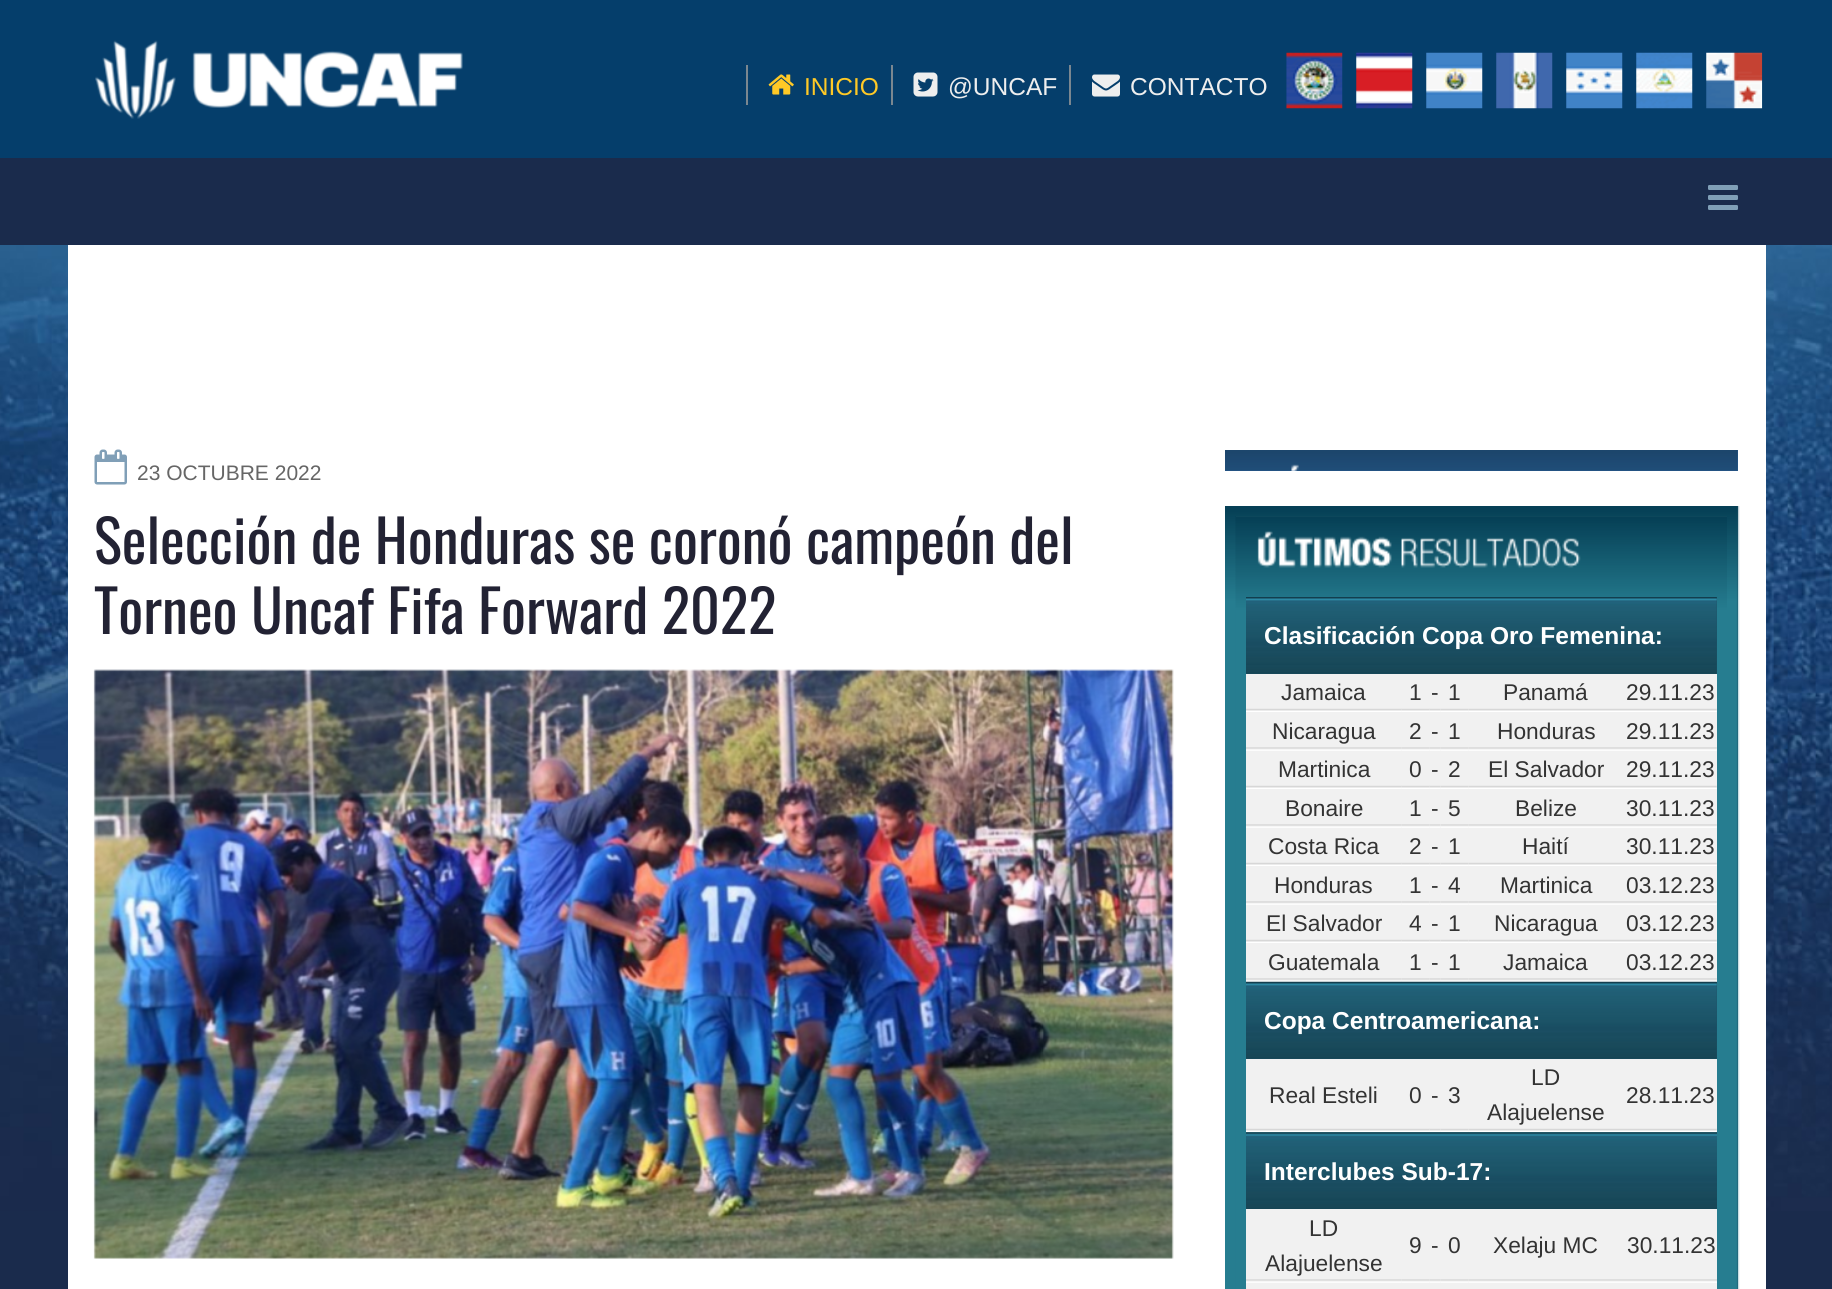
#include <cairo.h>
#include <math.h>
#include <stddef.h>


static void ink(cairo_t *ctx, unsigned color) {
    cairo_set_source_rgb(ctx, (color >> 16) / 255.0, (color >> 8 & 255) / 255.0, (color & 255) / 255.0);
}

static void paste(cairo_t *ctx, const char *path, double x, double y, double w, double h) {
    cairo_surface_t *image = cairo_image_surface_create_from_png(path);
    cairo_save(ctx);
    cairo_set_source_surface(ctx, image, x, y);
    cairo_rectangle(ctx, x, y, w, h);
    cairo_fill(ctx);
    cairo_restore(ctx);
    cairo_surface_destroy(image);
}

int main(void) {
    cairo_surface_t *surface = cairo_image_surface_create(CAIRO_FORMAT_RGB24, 1832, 1289);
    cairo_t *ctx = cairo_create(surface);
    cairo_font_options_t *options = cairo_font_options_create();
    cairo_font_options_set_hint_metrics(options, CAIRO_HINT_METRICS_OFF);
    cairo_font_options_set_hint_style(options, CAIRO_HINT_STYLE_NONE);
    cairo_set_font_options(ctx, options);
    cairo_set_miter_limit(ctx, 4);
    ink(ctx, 0x1A2B4C);
    cairo_paint(ctx);
    paste(ctx, "media/1.png", 0, 245, 1832, 966);
    ink(ctx, 0x053E6B);
    cairo_rectangle(ctx, 0, 0, 1832, 158);
    cairo_fill(ctx);
    paste(ctx, "media/2.png", 95, 40, 368, 79);
    ink(ctx, 0x7B8790);
    cairo_rectangle(ctx, 746, 65, 2, 40);
    cairo_fill(ctx);
    paste(ctx, "media/3.png", 768, 74, 26, 21);
    cairo_select_font_face(ctx, "Liberation Sans", CAIRO_FONT_SLANT_NORMAL, CAIRO_FONT_WEIGHT_NORMAL);
    cairo_set_font_size(ctx, 24.5);
    ink(ctx, 0xFFC926);
    cairo_move_to(ctx, 804, 95);
    cairo_show_text(ctx, "INICIO");
    ink(ctx, 0x7B8790);
    cairo_rectangle(ctx, 891, 65, 2, 40);
    cairo_fill(ctx);
    paste(ctx, "media/4.png", 913, 72, 25, 25);
    ink(ctx, 0xEEEEEE);
    cairo_move_to(ctx, 948, 95);
    cairo_show_text(ctx, "@UNCAF");
    ink(ctx, 0x7B8790);
    cairo_rectangle(ctx, 1069, 65, 2, 40);
    cairo_fill(ctx);
    paste(ctx, "media/5.png", 1092, 74, 28, 23);
    ink(ctx, 0xEEEEEE);
    cairo_move_to(ctx, 1130, 95);
    cairo_show_text(ctx, "CONTACTO");
    paste(ctx, "media/6.png", 1286, 52, 57, 57);
    paste(ctx, "media/7.png", 1356, 52, 57, 57);
    paste(ctx, "media/8.png", 1426, 52, 57, 57);
    paste(ctx, "media/9.png", 1496, 52, 57, 57);
    paste(ctx, "media/10.png", 1566, 52, 57, 57);
    paste(ctx, "media/11.png", 1636, 52, 57, 57);
    paste(ctx, "media/12.png", 1706, 52, 57, 57);
    paste(ctx, "media/13.png", 1708, 185, 30, 25);
    ink(ctx, 0xFFFFFF);
    cairo_rectangle(ctx, 68, 245, 1698, 1044);
    cairo_fill(ctx);
    paste(ctx, "media/14.png", 94, 449, 33, 36);
    cairo_set_font_size(ctx, 21);
    ink(ctx, 0x666666);
    cairo_move_to(ctx, 137, 480);
    cairo_show_text(ctx, "23 OCTUBRE 2022");
    cairo_select_font_face(ctx, "Oswald", CAIRO_FONT_SLANT_NORMAL, CAIRO_FONT_WEIGHT_NORMAL);
    cairo_set_font_size(ctx, 58.75);
    ink(ctx, 0x222233);
    cairo_move_to(ctx, 94, 564);
    cairo_show_text(ctx, "Selección de Honduras se coronó campeón del");
    cairo_move_to(ctx, 94, 634);
    cairo_show_text(ctx, "Torneo Uncaf Fifa Forward 2022");
    paste(ctx, "media/15.png", 93, 669, 1081, 590);
    ink(ctx, 0x2D64A0);
    cairo_rectangle(ctx, 1225, 450, 513, 21);
    cairo_fill(ctx);
    paste(ctx, "media/16.png", 1225, 450, 513, 21);
    ink(ctx, 0x1B5266);
    cairo_rectangle(ctx, 1736, 506, 2, 783);
    cairo_fill(ctx);
    paste(ctx, "media/17.png", 1225, 506, 515, 783);
    cairo_rectangle(ctx, 1236, 516, 491, 1);
    cairo_fill(ctx);
    paste(ctx, "media/18.png", 1235, 516, 492, 773);
    cairo_rectangle(ctx, 1246, 597, 471, 77);
    cairo_fill(ctx);
    paste(ctx, "media/19.png", 1246, 597, 471, 77);
    cairo_select_font_face(ctx, "Liberation Sans", CAIRO_FONT_SLANT_NORMAL, CAIRO_FONT_WEIGHT_BOLD);
    cairo_set_font_size(ctx, 24.5);
    ink(ctx, 0xFFFFFF);
    cairo_move_to(ctx, 1264, 644);
    cairo_show_text(ctx, "Clasificación Copa Oro Femenina:");
    ink(ctx, 0xF1F1F1);
    cairo_rectangle(ctx, 1246, 674, 184, 38);
    cairo_fill(ctx);
    paste(ctx, "media/20.png", 1246, 708, 156, 4);
    cairo_select_font_face(ctx, "Liberation Sans", CAIRO_FONT_SLANT_NORMAL, CAIRO_FONT_WEIGHT_NORMAL);
    cairo_set_font_size(ctx, 22.75);
    ink(ctx, 0x333333);
    cairo_move_to(ctx, 1281, 700);
    cairo_show_text(ctx, "Jamaica");
    paste(ctx, "media/21.png", 1401, 708, 29, 4);
    cairo_move_to(ctx, 1409, 700);
    cairo_show_text(ctx, "1");
    ink(ctx, 0xF1F1F1);
    cairo_rectangle(ctx, 1430, 674, 10, 35);
    cairo_fill(ctx);
    paste(ctx, "media/22.png", 1429, 708, 11, 4);
    ink(ctx, 0x333333);
    cairo_move_to(ctx, 1431, 700);
    cairo_show_text(ctx, "-");
    ink(ctx, 0xF1F1F1);
    cairo_rectangle(ctx, 1440, 674, 277, 38);
    cairo_fill(ctx);
    paste(ctx, "media/23.png", 1440, 708, 28, 4);
    ink(ctx, 0x333333);
    cairo_move_to(ctx, 1448, 700);
    cairo_show_text(ctx, "1");
    paste(ctx, "media/24.png", 1468, 708, 156, 4);
    cairo_move_to(ctx, 1503, 700);
    cairo_show_text(ctx, "Panamá");
    paste(ctx, "media/25.png", 1624, 708, 93, 4);
    cairo_move_to(ctx, 1626, 700);
    cairo_show_text(ctx, "29.11.23");
    ink(ctx, 0xF1F1F1);
    cairo_rectangle(ctx, 1246, 712, 471, 39);
    cairo_fill(ctx);
    paste(ctx, "media/26.png", 1246, 747, 156, 4);
    ink(ctx, 0x333333);
    cairo_move_to(ctx, 1272, 739);
    cairo_show_text(ctx, "Nicaragua");
    paste(ctx, "media/27.png", 1402, 747, 28, 4);
    cairo_move_to(ctx, 1409, 739);
    cairo_show_text(ctx, "2");
    paste(ctx, "media/28.png", 1430, 747, 10, 4);
    cairo_move_to(ctx, 1431, 739);
    cairo_show_text(ctx, "-");
    paste(ctx, "media/29.png", 1440, 747, 28, 4);
    cairo_move_to(ctx, 1448, 739);
    cairo_show_text(ctx, "1");
    paste(ctx, "media/30.png", 1468, 747, 156, 4);
    cairo_move_to(ctx, 1497, 739);
    cairo_show_text(ctx, "Honduras");
    paste(ctx, "media/31.png", 1624, 747, 93, 4);
    cairo_move_to(ctx, 1626, 739);
    cairo_show_text(ctx, "29.11.23");
    ink(ctx, 0xF1F1F1);
    cairo_rectangle(ctx, 1246, 751, 184, 38);
    cairo_fill(ctx);
    paste(ctx, "media/20.png", 1246, 785, 156, 4);
    ink(ctx, 0x333333);
    cairo_move_to(ctx, 1278, 777);
    cairo_show_text(ctx, "Martinica");
    paste(ctx, "media/21.png", 1401, 785, 29, 4);
    cairo_move_to(ctx, 1409, 777);
    cairo_show_text(ctx, "0");
    ink(ctx, 0xF1F1F1);
    cairo_rectangle(ctx, 1430, 751, 10, 35);
    cairo_fill(ctx);
    paste(ctx, "media/22.png", 1429, 785, 11, 4);
    ink(ctx, 0x333333);
    cairo_move_to(ctx, 1431, 777);
    cairo_show_text(ctx, "-");
    ink(ctx, 0xF1F1F1);
    cairo_rectangle(ctx, 1440, 751, 277, 38);
    cairo_fill(ctx);
    paste(ctx, "media/23.png", 1440, 785, 28, 4);
    ink(ctx, 0x333333);
    cairo_move_to(ctx, 1448, 777);
    cairo_show_text(ctx, "2");
    paste(ctx, "media/24.png", 1468, 785, 156, 4);
    cairo_move_to(ctx, 1488, 777);
    cairo_show_text(ctx, "El Salvador");
    paste(ctx, "media/25.png", 1624, 785, 93, 4);
    cairo_move_to(ctx, 1626, 777);
    cairo_show_text(ctx, "29.11.23");
    ink(ctx, 0xF1F1F1);
    cairo_rectangle(ctx, 1246, 789, 471, 39);
    cairo_fill(ctx);
    paste(ctx, "media/26.png", 1246, 824, 156, 4);
    ink(ctx, 0x333333);
    cairo_move_to(ctx, 1285, 816);
    cairo_show_text(ctx, "Bonaire");
    paste(ctx, "media/27.png", 1402, 824, 28, 4);
    cairo_move_to(ctx, 1409, 816);
    cairo_show_text(ctx, "1");
    paste(ctx, "media/28.png", 1430, 824, 10, 4);
    cairo_move_to(ctx, 1431, 816);
    cairo_show_text(ctx, "-");
    paste(ctx, "media/32.png", 1440, 824, 28, 4);
    cairo_move_to(ctx, 1448, 816);
    cairo_show_text(ctx, "5");
    paste(ctx, "media/30.png", 1468, 824, 156, 4);
    cairo_move_to(ctx, 1515, 816);
    cairo_show_text(ctx, "Belize");
    paste(ctx, "media/31.png", 1624, 824, 93, 4);
    cairo_move_to(ctx, 1626, 816);
    cairo_show_text(ctx, "30.11.23");
    ink(ctx, 0xF1F1F1);
    cairo_rectangle(ctx, 1246, 828, 184, 38);
    cairo_fill(ctx);
    paste(ctx, "media/20.png", 1246, 862, 156, 4);
    ink(ctx, 0x333333);
    cairo_move_to(ctx, 1268, 854);
    cairo_show_text(ctx, "Costa Rica");
    paste(ctx, "media/21.png", 1401, 862, 29, 4);
    cairo_move_to(ctx, 1409, 854);
    cairo_show_text(ctx, "2");
    ink(ctx, 0xF1F1F1);
    cairo_rectangle(ctx, 1430, 828, 10, 35);
    cairo_fill(ctx);
    paste(ctx, "media/22.png", 1429, 862, 11, 4);
    ink(ctx, 0x333333);
    cairo_move_to(ctx, 1431, 854);
    cairo_show_text(ctx, "-");
    ink(ctx, 0xF1F1F1);
    cairo_rectangle(ctx, 1440, 828, 277, 38);
    cairo_fill(ctx);
    paste(ctx, "media/23.png", 1440, 862, 28, 4);
    ink(ctx, 0x333333);
    cairo_move_to(ctx, 1448, 854);
    cairo_show_text(ctx, "1");
    paste(ctx, "media/24.png", 1468, 862, 156, 4);
    cairo_move_to(ctx, 1522, 854);
    cairo_show_text(ctx, "Haití");
    paste(ctx, "media/25.png", 1624, 862, 93, 4);
    cairo_move_to(ctx, 1626, 854);
    cairo_show_text(ctx, "30.11.23");
    ink(ctx, 0xF1F1F1);
    cairo_rectangle(ctx, 1246, 866, 471, 39);
    cairo_fill(ctx);
    paste(ctx, "media/26.png", 1246, 901, 156, 4);
    ink(ctx, 0x333333);
    cairo_move_to(ctx, 1274, 893);
    cairo_show_text(ctx, "Honduras");
    paste(ctx, "media/27.png", 1402, 901, 28, 4);
    cairo_move_to(ctx, 1409, 893);
    cairo_show_text(ctx, "1");
    paste(ctx, "media/28.png", 1430, 901, 10, 4);
    cairo_move_to(ctx, 1431, 893);
    cairo_show_text(ctx, "-");
    paste(ctx, "media/29.png", 1440, 901, 28, 4);
    cairo_move_to(ctx, 1448, 893);
    cairo_show_text(ctx, "4");
    paste(ctx, "media/30.png", 1468, 901, 156, 4);
    cairo_move_to(ctx, 1500, 893);
    cairo_show_text(ctx, "Martinica");
    paste(ctx, "media/31.png", 1624, 901, 93, 4);
    cairo_move_to(ctx, 1626, 893);
    cairo_show_text(ctx, "03.12.23");
    ink(ctx, 0xF1F1F1);
    cairo_rectangle(ctx, 1246, 905, 184, 38);
    cairo_fill(ctx);
    paste(ctx, "media/20.png", 1246, 939, 156, 4);
    ink(ctx, 0x333333);
    cairo_move_to(ctx, 1266, 931);
    cairo_show_text(ctx, "El Salvador");
    paste(ctx, "media/21.png", 1401, 939, 29, 4);
    cairo_move_to(ctx, 1409, 931);
    cairo_show_text(ctx, "4");
    ink(ctx, 0xF1F1F1);
    cairo_rectangle(ctx, 1430, 905, 10, 35);
    cairo_fill(ctx);
    paste(ctx, "media/22.png", 1429, 939, 11, 4);
    ink(ctx, 0x333333);
    cairo_move_to(ctx, 1431, 931);
    cairo_show_text(ctx, "-");
    ink(ctx, 0xF1F1F1);
    cairo_rectangle(ctx, 1440, 905, 277, 38);
    cairo_fill(ctx);
    paste(ctx, "media/23.png", 1440, 939, 28, 4);
    ink(ctx, 0x333333);
    cairo_move_to(ctx, 1448, 931);
    cairo_show_text(ctx, "1");
    paste(ctx, "media/24.png", 1468, 939, 156, 4);
    cairo_move_to(ctx, 1494, 931);
    cairo_show_text(ctx, "Nicaragua");
    paste(ctx, "media/25.png", 1624, 939, 93, 4);
    cairo_move_to(ctx, 1626, 931);
    cairo_show_text(ctx, "03.12.23");
    ink(ctx, 0xF1F1F1);
    cairo_rectangle(ctx, 1246, 943, 471, 39);
    cairo_fill(ctx);
    paste(ctx, "media/26.png", 1246, 978, 156, 4);
    ink(ctx, 0x333333);
    cairo_move_to(ctx, 1268, 970);
    cairo_show_text(ctx, "Guatemala");
    paste(ctx, "media/27.png", 1402, 978, 28, 4);
    cairo_move_to(ctx, 1409, 970);
    cairo_show_text(ctx, "1");
    paste(ctx, "media/28.png", 1430, 978, 10, 4);
    cairo_move_to(ctx, 1431, 970);
    cairo_show_text(ctx, "-");
    paste(ctx, "media/29.png", 1440, 978, 28, 4);
    cairo_move_to(ctx, 1448, 970);
    cairo_show_text(ctx, "1");
    paste(ctx, "media/33.png", 1468, 978, 156, 4);
    cairo_move_to(ctx, 1503, 970);
    cairo_show_text(ctx, "Jamaica");
    paste(ctx, "media/31.png", 1624, 978, 93, 4);
    cairo_move_to(ctx, 1626, 970);
    cairo_show_text(ctx, "03.12.23");
    ink(ctx, 0x1B5266);
    cairo_rectangle(ctx, 1246, 982, 471, 77);
    cairo_fill(ctx);
    paste(ctx, "media/34.png", 1246, 981, 471, 78);
    cairo_select_font_face(ctx, "Liberation Sans", CAIRO_FONT_SLANT_NORMAL, CAIRO_FONT_WEIGHT_BOLD);
    cairo_set_font_size(ctx, 24.5);
    ink(ctx, 0xFFFFFF);
    cairo_move_to(ctx, 1264, 1029);
    cairo_show_text(ctx, "Copa Centroamericana:");
    ink(ctx, 0xF1F1F1);
    cairo_rectangle(ctx, 1246, 1059, 154, 70);
    cairo_fill(ctx);
    paste(ctx, "media/35.png", 1246, 1128, 154, 5);
    cairo_select_font_face(ctx, "Liberation Sans", CAIRO_FONT_SLANT_NORMAL, CAIRO_FONT_WEIGHT_NORMAL);
    cairo_set_font_size(ctx, 22.75);
    ink(ctx, 0x333333);
    cairo_move_to(ctx, 1269, 1103);
    cairo_show_text(ctx, "Real Esteli");
    ink(ctx, 0xF1F1F1);
    cairo_rectangle(ctx, 1400, 1059, 30, 73);
    cairo_fill(ctx);
    paste(ctx, "media/36.png", 1400, 1128, 30, 5);
    ink(ctx, 0x333333);
    cairo_move_to(ctx, 1409, 1103);
    cairo_show_text(ctx, "0");
    ink(ctx, 0xF1F1F1);
    cairo_rectangle(ctx, 1430, 1059, 10, 70);
    cairo_fill(ctx);
    paste(ctx, "media/37.png", 1429, 1128, 12, 5);
    ink(ctx, 0x333333);
    cairo_move_to(ctx, 1431, 1103);
    cairo_show_text(ctx, "-");
    ink(ctx, 0xF1F1F1);
    cairo_rectangle(ctx, 1440, 1059, 28, 73);
    cairo_fill(ctx);
    paste(ctx, "media/38.png", 1440, 1128, 29, 5);
    ink(ctx, 0x333333);
    cairo_move_to(ctx, 1448, 1103);
    cairo_show_text(ctx, "3");
    ink(ctx, 0xF1F1F1);
    cairo_rectangle(ctx, 1468, 1059, 249, 73);
    cairo_fill(ctx);
    paste(ctx, "media/39.png", 1468, 1128, 156, 5);
    ink(ctx, 0x333333);
    cairo_move_to(ctx, 1531, 1085);
    cairo_show_text(ctx, "LD");
    cairo_move_to(ctx, 1487, 1120);
    cairo_show_text(ctx, "Alajuelense");
    paste(ctx, "media/40.png", 1624, 1128, 93, 5);
    cairo_move_to(ctx, 1626, 1103);
    cairo_show_text(ctx, "28.11.23");
    paste(ctx, "media/41.png", 1246, 1132, 471, 77);
    cairo_select_font_face(ctx, "Liberation Sans", CAIRO_FONT_SLANT_NORMAL, CAIRO_FONT_WEIGHT_BOLD);
    cairo_set_font_size(ctx, 24.5);
    ink(ctx, 0xFFFFFF);
    cairo_move_to(ctx, 1264, 1180);
    cairo_show_text(ctx, "Interclubes Sub-17:");
    ink(ctx, 0xF1F1F1);
    cairo_rectangle(ctx, 1246, 1209, 471, 74);
    cairo_fill(ctx);
    paste(ctx, "media/26.png", 1246, 1279, 156, 4);
    cairo_select_font_face(ctx, "Liberation Sans", CAIRO_FONT_SLANT_NORMAL, CAIRO_FONT_WEIGHT_NORMAL);
    cairo_set_font_size(ctx, 22.75);
    ink(ctx, 0x333333);
    cairo_move_to(ctx, 1309, 1236);
    cairo_show_text(ctx, "LD");
    cairo_move_to(ctx, 1265, 1271);
    cairo_show_text(ctx, "Alajuelense");
    paste(ctx, "media/27.png", 1402, 1279, 28, 4);
    cairo_move_to(ctx, 1409, 1253);
    cairo_show_text(ctx, "9");
    paste(ctx, "media/28.png", 1430, 1279, 10, 4);
    cairo_move_to(ctx, 1431, 1253);
    cairo_show_text(ctx, "-");
    paste(ctx, "media/29.png", 1440, 1279, 28, 4);
    cairo_move_to(ctx, 1448, 1253);
    cairo_show_text(ctx, "0");
    paste(ctx, "media/30.png", 1468, 1279, 156, 4);
    cairo_move_to(ctx, 1493, 1253);
    cairo_show_text(ctx, "Xelaju MC");
    paste(ctx, "media/42.png", 1624, 1279, 93, 4);
    cairo_move_to(ctx, 1627, 1253);
    cairo_show_text(ctx, "30.11.23");
    ink(ctx, 0xF1F1F1);
    cairo_rectangle(ctx, 1246, 1283, 471, 6);
    cairo_fill(ctx);
    cairo_surface_write_to_png(surface, "image.png");
    cairo_font_options_destroy(options);
    cairo_destroy(ctx);
    cairo_surface_destroy(surface);
    return 0;
}
